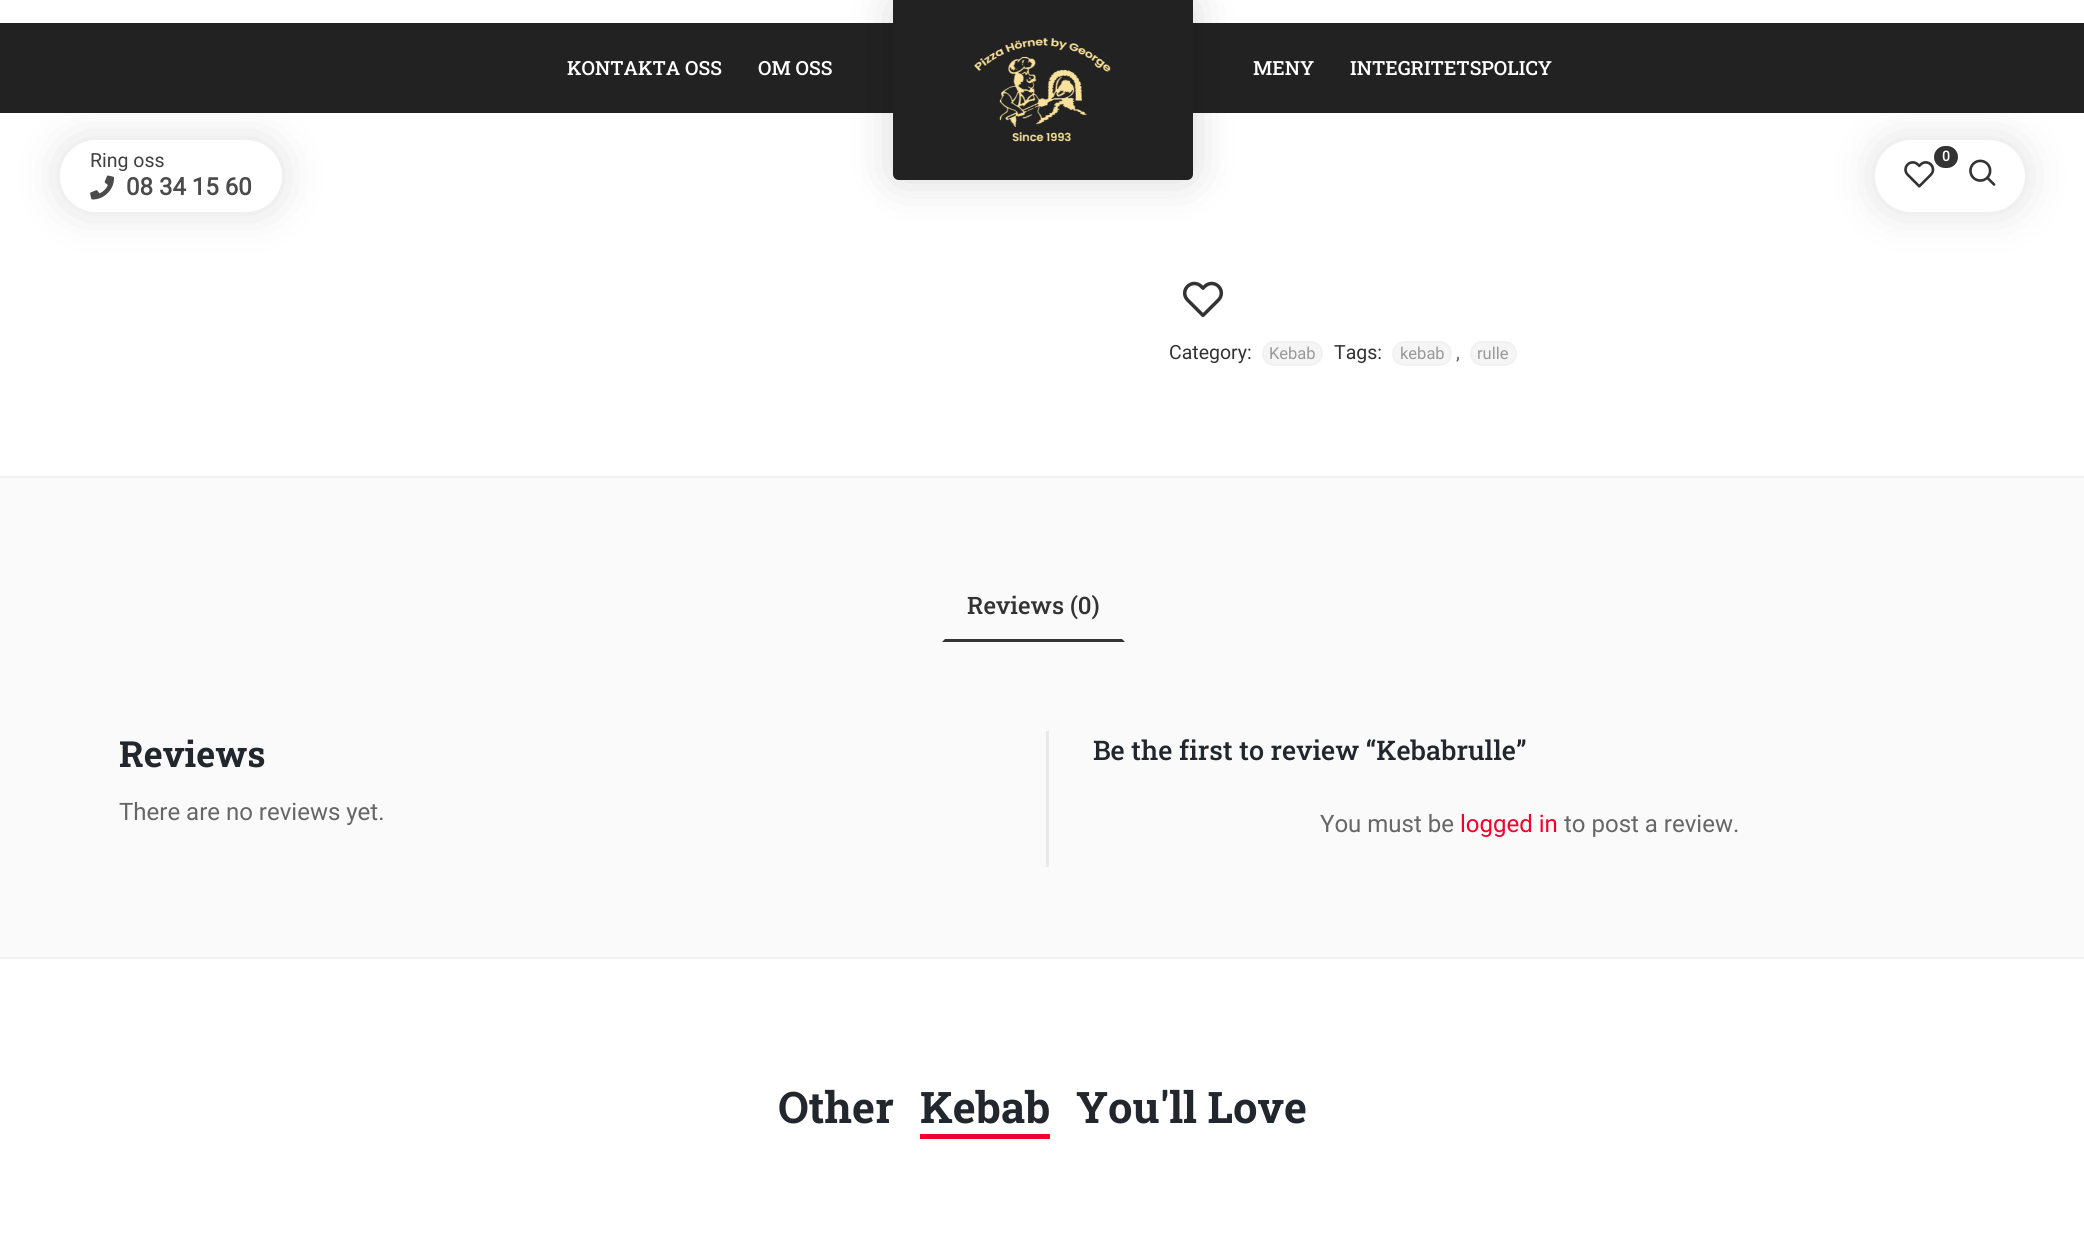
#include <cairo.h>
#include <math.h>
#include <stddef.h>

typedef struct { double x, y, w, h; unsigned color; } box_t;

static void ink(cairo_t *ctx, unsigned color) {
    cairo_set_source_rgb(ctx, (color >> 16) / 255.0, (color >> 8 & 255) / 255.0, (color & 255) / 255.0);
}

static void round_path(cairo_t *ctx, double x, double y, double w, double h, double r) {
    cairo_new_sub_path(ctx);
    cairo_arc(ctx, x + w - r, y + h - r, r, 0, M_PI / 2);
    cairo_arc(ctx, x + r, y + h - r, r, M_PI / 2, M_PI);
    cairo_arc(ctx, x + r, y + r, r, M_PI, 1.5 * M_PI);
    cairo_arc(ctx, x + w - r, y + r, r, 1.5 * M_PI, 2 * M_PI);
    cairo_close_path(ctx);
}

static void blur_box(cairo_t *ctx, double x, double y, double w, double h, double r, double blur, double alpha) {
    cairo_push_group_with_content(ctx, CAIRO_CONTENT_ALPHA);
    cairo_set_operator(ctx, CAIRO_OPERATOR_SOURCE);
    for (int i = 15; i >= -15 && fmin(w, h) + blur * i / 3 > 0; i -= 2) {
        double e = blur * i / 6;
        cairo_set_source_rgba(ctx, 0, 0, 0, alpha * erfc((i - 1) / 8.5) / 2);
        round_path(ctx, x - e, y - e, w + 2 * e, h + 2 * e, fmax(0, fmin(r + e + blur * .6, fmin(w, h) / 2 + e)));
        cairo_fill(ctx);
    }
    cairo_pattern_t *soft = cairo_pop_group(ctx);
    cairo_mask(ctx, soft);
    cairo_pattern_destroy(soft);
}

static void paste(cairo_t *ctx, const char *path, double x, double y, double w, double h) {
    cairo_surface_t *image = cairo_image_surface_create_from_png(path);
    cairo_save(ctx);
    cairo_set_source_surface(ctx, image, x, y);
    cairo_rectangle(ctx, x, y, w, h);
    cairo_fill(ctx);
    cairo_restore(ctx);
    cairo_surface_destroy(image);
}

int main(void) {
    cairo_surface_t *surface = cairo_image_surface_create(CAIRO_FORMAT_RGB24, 2084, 1237);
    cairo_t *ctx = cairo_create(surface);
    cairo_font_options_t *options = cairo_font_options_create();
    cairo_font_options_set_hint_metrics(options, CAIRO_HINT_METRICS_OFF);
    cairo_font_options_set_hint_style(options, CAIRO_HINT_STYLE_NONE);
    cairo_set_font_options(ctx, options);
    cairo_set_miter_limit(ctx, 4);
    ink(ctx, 0xFFFFFF);
    cairo_paint(ctx);
    ink(ctx, 0x000000);
    blur_box(ctx, 60, 140, 222, 72, 36, 22.5, 0.12);
    blur_box(ctx, 1875, 140, 150, 72, 36, 22.5, 0.12);
    ink(ctx, 0x222222);
    cairo_rectangle(ctx, 0, 23, 2084, 90);
    cairo_fill(ctx);
    cairo_select_font_face(ctx, "Roboto Slab Medium", CAIRO_FONT_SLANT_NORMAL, CAIRO_FONT_WEIGHT_NORMAL);
    cairo_set_font_size(ctx, 19.5);
    ink(ctx, 0xFFFFFF);
    cairo_move_to(ctx, 567, 75);
    cairo_show_text(ctx, "KONTAKTA OSS");
    ink(ctx, 0x000000);
    blur_box(ctx, 893, 0, 300, 180, 6, 22.5, 0.15);
    ink(ctx, 0xFFFFFF);
    cairo_move_to(ctx, 758, 75);
    cairo_show_text(ctx, "OM OSS");
    ink(ctx, 0x222222);
    cairo_new_path(ctx);
    cairo_move_to(ctx, 893, 0);
    cairo_line_to(ctx, 1193, 0);
    cairo_line_to(ctx, 1193, 174);
    cairo_curve_to(ctx, 1193, 177.5, 1190.5, 180, 1187, 180);
    cairo_line_to(ctx, 899, 180);
    cairo_curve_to(ctx, 895.5, 180, 893, 177.5, 893, 174);
    cairo_close_path(ctx);
    cairo_fill(ctx);
    paste(ctx, "media/1.png", 974, 38, 137, 104);
    ink(ctx, 0xFFFFFF);
    cairo_move_to(ctx, 1253, 75);
    cairo_show_text(ctx, "MENY");
    cairo_move_to(ctx, 1350, 75);
    cairo_show_text(ctx, "INTEGRITETSPOLICY");
    round_path(ctx, 60, 140, 222, 72, 36);
    cairo_fill(ctx);
    cairo_select_font_face(ctx, "Roboto", CAIRO_FONT_SLANT_NORMAL, CAIRO_FONT_WEIGHT_NORMAL);
    ink(ctx, 0x404040);
    cairo_move_to(ctx, 90, 167);
    cairo_show_text(ctx, "Ring oss");
    paste(ctx, "media/2.png", 90, 175, 24, 25);
    cairo_select_font_face(ctx, "Roboto", CAIRO_FONT_SLANT_NORMAL, CAIRO_FONT_WEIGHT_BOLD);
    cairo_set_font_size(ctx, 24);
    ink(ctx, 0x4B4B4B);
    cairo_move_to(ctx, 126, 195);
    cairo_show_text(ctx, "08 34 15 60");
    ink(ctx, 0xFFFFFF);
    round_path(ctx, 1875, 140, 150, 72, 36);
    cairo_fill(ctx);
    paste(ctx, "media/3.png", 1904, 161, 31, 27);
    ink(ctx, 0x333333);
    round_path(ctx, 1934, 146, 24, 22, 11);
    cairo_fill(ctx);
    cairo_set_font_size(ctx, 14);
    ink(ctx, 0xFFFFFF);
    cairo_move_to(ctx, 1942, 161);
    cairo_show_text(ctx, "0");
    paste(ctx, "media/4.png", 1969, 159, 27, 27);
    paste(ctx, "media/5.png", 1182, 281, 41, 37);
    cairo_select_font_face(ctx, "Roboto", CAIRO_FONT_SLANT_NORMAL, CAIRO_FONT_WEIGHT_NORMAL);
    cairo_set_font_size(ctx, 19.5);
    ink(ctx, 0x333333);
    cairo_move_to(ctx, 1169, 359);
    cairo_show_text(ctx, "Category:");
    ink(ctx, 0xF5F5F5);
    round_path(ctx, 1263, 342, 59, 23, 11.5);
    cairo_fill_preserve(ctx);
    ink(ctx, 0xF1F1F1);
    cairo_stroke(ctx);
    cairo_set_font_size(ctx, 16.5);
    ink(ctx, 0x999999);
    cairo_move_to(ctx, 1269, 359);
    cairo_show_text(ctx, "Kebab");
    cairo_set_font_size(ctx, 19.5);
    ink(ctx, 0x333333);
    cairo_move_to(ctx, 1334, 359);
    cairo_show_text(ctx, "Tags:");
    ink(ctx, 0xF5F5F5);
    round_path(ctx, 1393, 342, 58, 23, 11.5);
    cairo_fill_preserve(ctx);
    ink(ctx, 0xF1F1F1);
    cairo_stroke(ctx);
    cairo_set_font_size(ctx, 16.5);
    ink(ctx, 0x999999);
    cairo_move_to(ctx, 1400, 359);
    cairo_show_text(ctx, "kebab");
    cairo_set_font_size(ctx, 19.5);
    ink(ctx, 0x666666);
    cairo_move_to(ctx, 1456, 359);
    cairo_show_text(ctx, ",");
    ink(ctx, 0xF5F5F5);
    round_path(ctx, 1471, 342, 45, 23, 11.5);
    cairo_fill_preserve(ctx);
    ink(ctx, 0xF1F1F1);
    cairo_stroke(ctx);
    cairo_set_font_size(ctx, 16.5);
    ink(ctx, 0x999999);
    cairo_move_to(ctx, 1477, 359);
    cairo_show_text(ctx, "rulle");
    {
        static const box_t items[] = {
            {0, 478, 2084, 479, 0xFAFAFA},
            {0, 476, 2084, 2, 0xF1F1F1},
            {0, 957, 2084, 2, 0xF1F1F1},
        };
        for (size_t i = 0; i < sizeof items / sizeof *items; i++) {
            ink(ctx, items[i].color);
            cairo_rectangle(ctx, items[i].x, items[i].y, items[i].w, items[i].h);
            cairo_fill(ctx);
        }
    }
    ink(ctx, 0x333333);
    cairo_new_path(ctx);
    cairo_move_to(ctx, 1125, 642);
    cairo_line_to(ctx, 942, 642);
    cairo_line_to(ctx, 945, 639);
    cairo_line_to(ctx, 1122, 639);
    cairo_close_path(ctx);
    cairo_fill(ctx);
    cairo_select_font_face(ctx, "Roboto Slab Medium", CAIRO_FONT_SLANT_NORMAL, CAIRO_FONT_WEIGHT_NORMAL);
    cairo_set_font_size(ctx, 24);
    cairo_move_to(ctx, 967, 614);
    cairo_show_text(ctx, "Reviews (0)");
    cairo_select_font_face(ctx, "Roboto Slab", CAIRO_FONT_SLANT_NORMAL, CAIRO_FONT_WEIGHT_BOLD);
    cairo_set_font_size(ctx, 36);
    ink(ctx, 0x22272D);
    cairo_move_to(ctx, 119, 767);
    cairo_show_text(ctx, "Reviews");
    cairo_select_font_face(ctx, "Roboto", CAIRO_FONT_SLANT_NORMAL, CAIRO_FONT_WEIGHT_NORMAL);
    cairo_set_font_size(ctx, 24);
    ink(ctx, 0x666666);
    cairo_move_to(ctx, 119, 820);
    cairo_show_text(ctx, "There are no reviews yet.");
    ink(ctx, 0xE9E9E9);
    cairo_rectangle(ctx, 1046, 731, 3, 136);
    cairo_fill(ctx);
    cairo_select_font_face(ctx, "Roboto Slab Medium", CAIRO_FONT_SLANT_NORMAL, CAIRO_FONT_WEIGHT_NORMAL);
    cairo_set_font_size(ctx, 27);
    ink(ctx, 0x22272D);
    cairo_move_to(ctx, 1093, 760);
    cairo_show_text(ctx, "Be the first to review “Kebabrulle”");
    cairo_select_font_face(ctx, "Roboto", CAIRO_FONT_SLANT_NORMAL, CAIRO_FONT_WEIGHT_NORMAL);
    cairo_set_font_size(ctx, 24);
    ink(ctx, 0x666666);
    cairo_move_to(ctx, 1320, 832);
    cairo_show_text(ctx, "You must be");
    ink(ctx, 0xF2002D);
    cairo_move_to(ctx, 1460, 832);
    cairo_show_text(ctx, "logged in");
    ink(ctx, 0x666666);
    cairo_move_to(ctx, 1564, 832);
    cairo_show_text(ctx, "to post a review.");
    cairo_select_font_face(ctx, "Roboto Slab", CAIRO_FONT_SLANT_NORMAL, CAIRO_FONT_WEIGHT_BOLD);
    cairo_set_font_size(ctx, 43.5);
    ink(ctx, 0x22272D);
    cairo_move_to(ctx, 778, 1123);
    cairo_show_text(ctx, "Other");
    cairo_move_to(ctx, 920, 1123);
    cairo_show_text(ctx, "Kebab");
    ink(ctx, 0xF2002D);
    cairo_rectangle(ctx, 920, 1134, 130, 5);
    cairo_fill(ctx);
    ink(ctx, 0x22272D);
    cairo_move_to(ctx, 1076, 1123);
    cairo_show_text(ctx, "You'll Love");
    cairo_surface_write_to_png(surface, "image.png");
    cairo_font_options_destroy(options);
    cairo_destroy(ctx);
    cairo_surface_destroy(surface);
    return 0;
}
